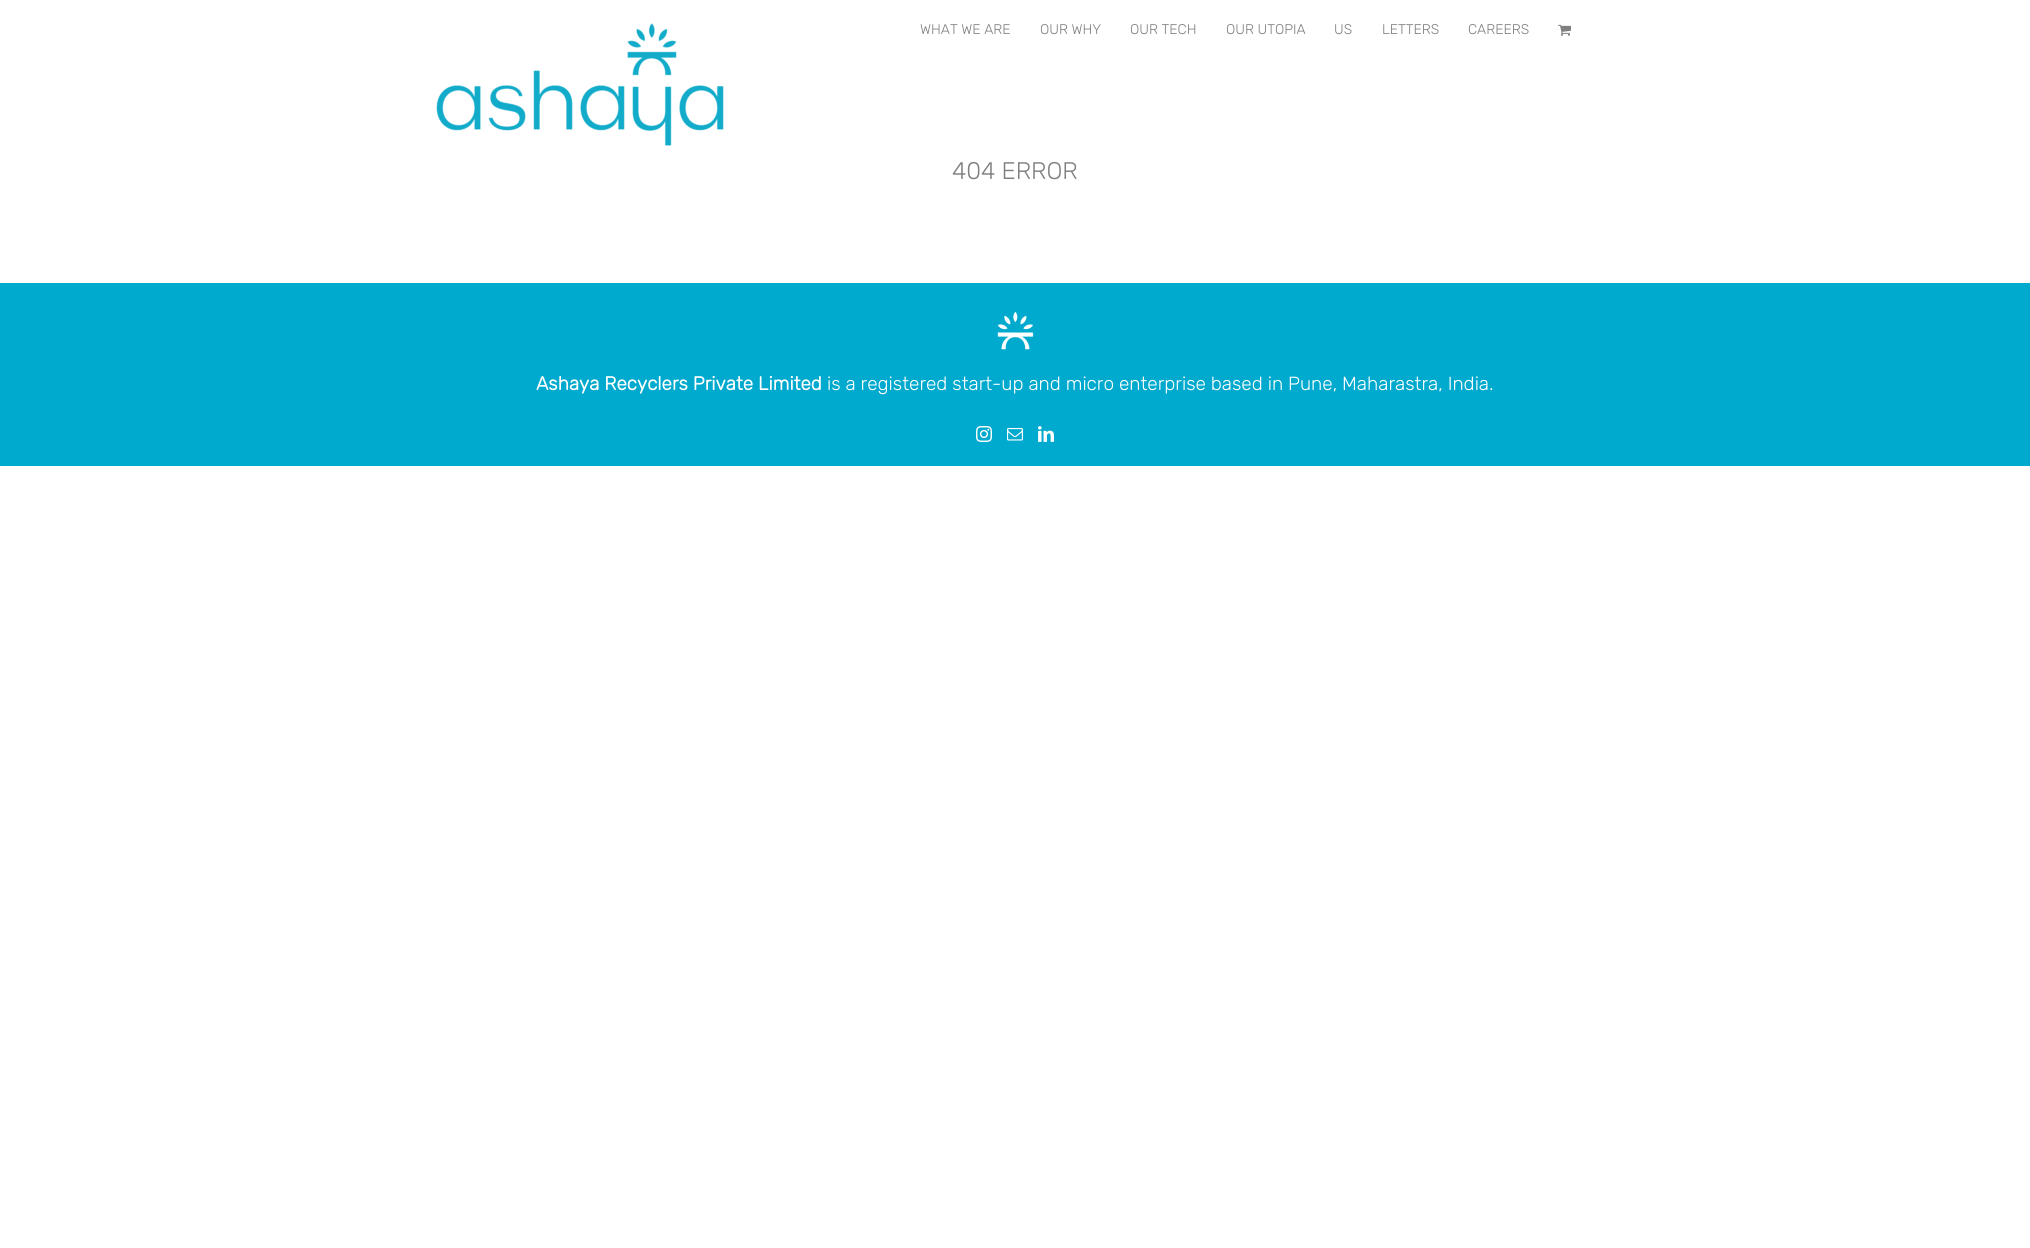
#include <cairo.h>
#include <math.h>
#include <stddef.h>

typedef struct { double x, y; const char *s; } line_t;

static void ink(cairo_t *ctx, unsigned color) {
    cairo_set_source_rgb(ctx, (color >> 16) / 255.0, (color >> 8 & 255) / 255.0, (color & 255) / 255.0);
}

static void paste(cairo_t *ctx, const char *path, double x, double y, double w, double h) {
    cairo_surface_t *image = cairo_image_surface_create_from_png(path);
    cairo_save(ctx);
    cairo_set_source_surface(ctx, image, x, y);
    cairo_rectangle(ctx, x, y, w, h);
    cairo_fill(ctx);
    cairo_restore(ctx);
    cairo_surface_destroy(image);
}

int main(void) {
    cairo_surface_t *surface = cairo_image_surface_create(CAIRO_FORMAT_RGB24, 2030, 1248);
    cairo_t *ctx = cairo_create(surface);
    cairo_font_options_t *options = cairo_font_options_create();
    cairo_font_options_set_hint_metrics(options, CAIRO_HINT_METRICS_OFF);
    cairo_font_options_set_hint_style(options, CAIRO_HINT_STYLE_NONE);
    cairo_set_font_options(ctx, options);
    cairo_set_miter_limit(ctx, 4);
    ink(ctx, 0xFFFFFF);
    cairo_paint(ctx);
    paste(ctx, "media/1.png", 436, 23, 288, 123);
    cairo_select_font_face(ctx, "Rubik Light", CAIRO_FONT_SLANT_NORMAL, CAIRO_FONT_WEIGHT_NORMAL);
    cairo_set_font_size(ctx, 14);
    ink(ctx, 0x7F7F7F);
    {
        static const line_t items[] = {
            {920, 34, "WHAT WE ARE"},
            {1040, 34, "OUR WHY"},
            {1130, 34, "OUR TECH"},
            {1226, 34, "OUR UTOPIA"},
            {1334, 34, "US"},
            {1382, 34, "LETTERS"},
            {1468, 34, "CAREERS"},
        };
        for (size_t i = 0; i < sizeof items / sizeof *items; i++) {
            cairo_move_to(ctx, items[i].x, items[i].y);
            cairo_show_text(ctx, items[i].s);
        }
    }
    paste(ctx, "media/2.png", 1558, 24, 13, 12);
    cairo_set_font_size(ctx, 24);
    cairo_move_to(ctx, 952, 179);
    cairo_show_text(ctx, "404 ERROR");
    ink(ctx, 0x00A9CE);
    cairo_rectangle(ctx, 0, 283, 2030, 183);
    cairo_fill(ctx);
    paste(ctx, "media/3.png", 997, 311, 37, 39);
    cairo_select_font_face(ctx, "Rubik", CAIRO_FONT_SLANT_NORMAL, CAIRO_FONT_WEIGHT_BOLD);
    cairo_set_font_size(ctx, 19);
    ink(ctx, 0xFFFFFF);
    cairo_move_to(ctx, 536, 390);
    cairo_show_text(ctx, "Ashaya Recyclers Private Limited");
    cairo_select_font_face(ctx, "Rubik Light", CAIRO_FONT_SLANT_NORMAL, CAIRO_FONT_WEIGHT_NORMAL);
    cairo_move_to(ctx, 827, 390);
    cairo_show_text(ctx, "is a registered start-up and micro enterprise based in Pune, Maharastra, India.");
    paste(ctx, "media/4.png", 976, 426, 16, 16);
    paste(ctx, "media/5.png", 1007, 428, 16, 13);
    paste(ctx, "media/6.png", 1038, 426, 16, 16);
    cairo_surface_write_to_png(surface, "image.png");
    cairo_font_options_destroy(options);
    cairo_destroy(ctx);
    cairo_surface_destroy(surface);
    return 0;
}
